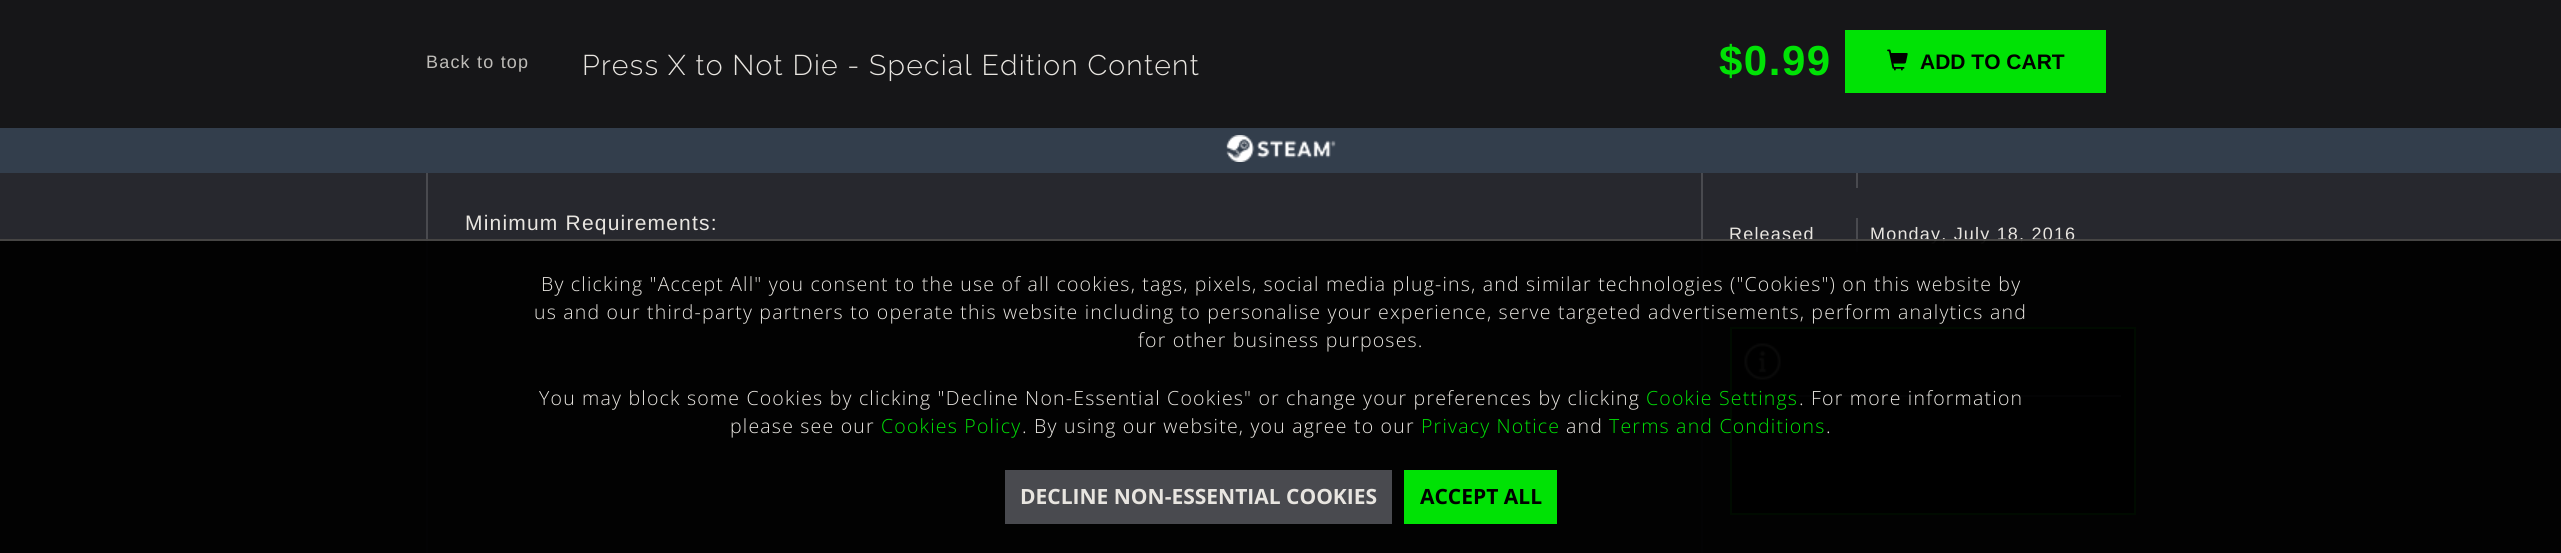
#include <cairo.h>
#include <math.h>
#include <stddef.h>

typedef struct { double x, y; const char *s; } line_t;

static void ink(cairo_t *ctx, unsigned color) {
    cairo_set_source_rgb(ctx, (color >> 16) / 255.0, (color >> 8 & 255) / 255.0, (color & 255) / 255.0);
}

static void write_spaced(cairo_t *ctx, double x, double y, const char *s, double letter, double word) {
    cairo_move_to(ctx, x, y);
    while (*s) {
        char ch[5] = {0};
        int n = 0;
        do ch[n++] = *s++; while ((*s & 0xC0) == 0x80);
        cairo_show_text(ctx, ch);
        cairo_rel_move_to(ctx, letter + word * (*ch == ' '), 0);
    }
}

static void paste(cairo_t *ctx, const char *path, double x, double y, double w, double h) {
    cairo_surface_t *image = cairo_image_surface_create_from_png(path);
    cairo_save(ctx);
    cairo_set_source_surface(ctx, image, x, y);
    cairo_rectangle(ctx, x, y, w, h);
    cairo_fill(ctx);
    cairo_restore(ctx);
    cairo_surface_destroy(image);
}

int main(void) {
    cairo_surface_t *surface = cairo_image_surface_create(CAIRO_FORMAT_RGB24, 2561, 553);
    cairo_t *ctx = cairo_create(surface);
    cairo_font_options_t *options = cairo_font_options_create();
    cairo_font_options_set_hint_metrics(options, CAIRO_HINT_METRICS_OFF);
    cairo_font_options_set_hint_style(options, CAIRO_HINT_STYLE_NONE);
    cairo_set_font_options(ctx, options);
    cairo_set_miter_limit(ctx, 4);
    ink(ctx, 0x27282E);
    cairo_paint(ctx);
    ink(ctx, 0x161618);
    cairo_rectangle(ctx, 0, 0, 2561, 128);
    cairo_fill(ctx);
    cairo_select_font_face(ctx, "Liberation Sans", CAIRO_FONT_SLANT_NORMAL, CAIRO_FONT_WEIGHT_NORMAL);
    cairo_set_font_size(ctx, 18);
    ink(ctx, 0xBEBCB8);
    write_spaced(ctx, 426, 68, "Back to top", 1.2, 0);
    cairo_select_font_face(ctx, "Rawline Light", CAIRO_FONT_SLANT_NORMAL, CAIRO_FONT_WEIGHT_NORMAL);
    cairo_set_font_size(ctx, 28.5);
    ink(ctx, 0xE8E5E0);
    write_spaced(ctx, 582, 75, "Press X to Not Die - Special Edition Content", 1.2, 0);
    cairo_select_font_face(ctx, "Liberation Sans", CAIRO_FONT_SLANT_NORMAL, CAIRO_FONT_WEIGHT_BOLD);
    cairo_set_font_size(ctx, 42);
    ink(ctx, 0x00E205);
    write_spaced(ctx, 1719, 75, "$0.99", 1.5, 0);
    cairo_rectangle(ctx, 1845, 30, 261, 63);
    cairo_fill(ctx);
    paste(ctx, "media/1.png", 1887, 49, 21, 22);
    cairo_set_font_size(ctx, 21);
    ink(ctx, 0x000000);
    cairo_move_to(ctx, 1920, 69);
    cairo_show_text(ctx, "ADD TO CART");
    ink(ctx, 0x333E4C);
    cairo_rectangle(ctx, 0, 128, 2561, 45);
    cairo_fill(ctx);
    paste(ctx, "media/2.png", 1226, 135, 110, 27);
    ink(ctx, 0x494A4F);
    cairo_rectangle(ctx, 1701, 173, 2, 380);
    cairo_fill(ctx);
    cairo_rectangle(ctx, 426, 173, 2, 380);
    cairo_fill(ctx);
    cairo_select_font_face(ctx, "Liberation Sans", CAIRO_FONT_SLANT_NORMAL, CAIRO_FONT_WEIGHT_NORMAL);
    ink(ctx, 0xE8E5E0);
    write_spaced(ctx, 465, 230, "Minimum Requirements:", 1.2, 0);
    ink(ctx, 0x494A4F);
    cairo_rectangle(ctx, 1856, 173, 2, 15);
    cairo_fill(ctx);
    cairo_rectangle(ctx, 1856, 218, 2, 34);
    cairo_fill(ctx);
    cairo_set_font_size(ctx, 18);
    ink(ctx, 0xE8E5E0);
    write_spaced(ctx, 1729, 240, "Released", 1.2, 0);
    write_spaced(ctx, 1870, 240, "Monday, July 18, 2016", 1.2, 0);
    ink(ctx, 0x000000);
    cairo_rectangle(ctx, 1731, 328, 404, 186);
    cairo_fill_preserve(ctx);
    ink(ctx, 0x00E205);
    cairo_stroke(ctx);
    ink(ctx, 0x494A4F);
    cairo_rectangle(ctx, 1745, 395, 376, 2);
    cairo_fill(ctx);
    paste(ctx, "media/3.png", 1744, 343, 37, 37);
    cairo_set_source_rgba(ctx, 0, 0, 0, 0.95);
    cairo_rectangle(ctx, 0, 239, 2561, 314);
    cairo_fill(ctx);
    cairo_set_source_rgba(ctx, 0.91, 0.898, 0.878, 0.3);
    cairo_rectangle(ctx, 0, 239, 2561, 2);
    cairo_fill(ctx);
    cairo_select_font_face(ctx, "Open Sans Light", CAIRO_FONT_SLANT_NORMAL, CAIRO_FONT_WEIGHT_NORMAL);
    cairo_set_font_size(ctx, 19.5);
    ink(ctx, 0xE8E5E0);
    {
        static const line_t items[] = {
            {541, 291, "By clicking \"Accept All\" you consent to the use of all cookies, tags, pixels, social media plug-ins, and similar technologies (\"Cookies\") on this website by"},
            {534, 319, "us and our third-party partners to operate this website including to personalise your experience, serve targeted advertisements, perform analytics and"},
            {1138, 347, "for other business purposes."},
            {539, 405, "You may block some Cookies by clicking \"Decline Non-Essential Cookies\" or change your preferences by clicking"},
        };
        for (size_t i = 0; i < sizeof items / sizeof *items; i++) {
            write_spaced(ctx, items[i].x, items[i].y, items[i].s, 1.2, 0);
        }
    }
    ink(ctx, 0x00E205);
    write_spaced(ctx, 1646, 405, "Cookie Settings", 1.2, 0);
    ink(ctx, 0xE8E5E0);
    write_spaced(ctx, 1799, 405, ". For more information", 1.2, 0);
    write_spaced(ctx, 730, 433, "please see our", 1.2, 0);
    ink(ctx, 0x00E205);
    write_spaced(ctx, 881, 433, "Cookies Policy", 1.2, 0);
    ink(ctx, 0xE8E5E0);
    write_spaced(ctx, 1022, 433, ". By using our website, you agree to our", 1.2, 0);
    ink(ctx, 0x00E205);
    write_spaced(ctx, 1421, 433, "Privacy Notice", 1.2, 0);
    ink(ctx, 0xE8E5E0);
    write_spaced(ctx, 1566, 433, "and", 1.2, 0);
    ink(ctx, 0x00E205);
    write_spaced(ctx, 1609, 433, "Terms and Conditions", 1.2, 0);
    ink(ctx, 0xE8E5E0);
    write_spaced(ctx, 1826, 433, ".", 1.2, 0);
    ink(ctx, 0x494A4F);
    cairo_rectangle(ctx, 1005, 470, 387, 54);
    cairo_fill(ctx);
    cairo_select_font_face(ctx, "Open Sans", CAIRO_FONT_SLANT_NORMAL, CAIRO_FONT_WEIGHT_BOLD);
    cairo_set_font_size(ctx, 21);
    ink(ctx, 0xE8E5E0);
    cairo_move_to(ctx, 1020, 504);
    cairo_show_text(ctx, "DECLINE NON-ESSENTIAL COOKIES");
    ink(ctx, 0x00E205);
    cairo_rectangle(ctx, 1404, 470, 153, 54);
    cairo_fill(ctx);
    ink(ctx, 0x000000);
    cairo_move_to(ctx, 1420, 504);
    cairo_show_text(ctx, "ACCEPT ALL");
    cairo_surface_write_to_png(surface, "image.png");
    cairo_font_options_destroy(options);
    cairo_destroy(ctx);
    cairo_surface_destroy(surface);
    return 0;
}
